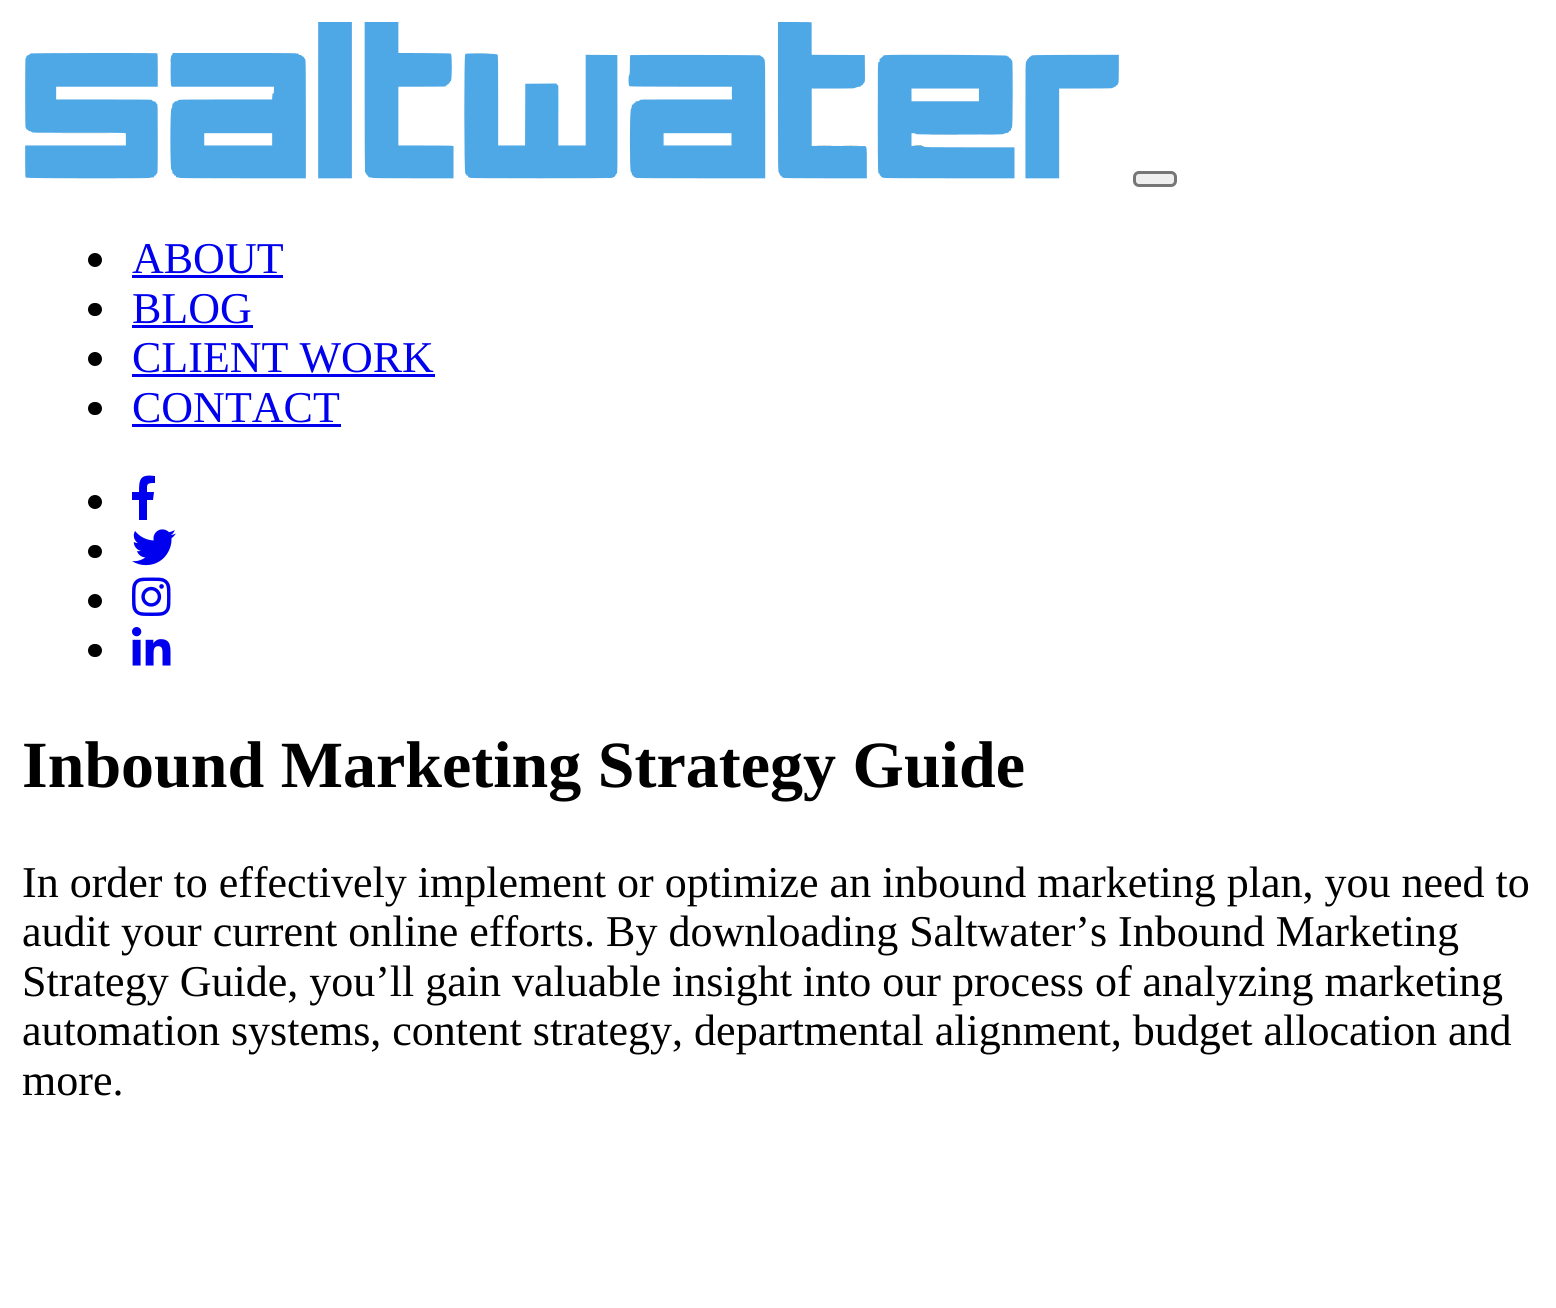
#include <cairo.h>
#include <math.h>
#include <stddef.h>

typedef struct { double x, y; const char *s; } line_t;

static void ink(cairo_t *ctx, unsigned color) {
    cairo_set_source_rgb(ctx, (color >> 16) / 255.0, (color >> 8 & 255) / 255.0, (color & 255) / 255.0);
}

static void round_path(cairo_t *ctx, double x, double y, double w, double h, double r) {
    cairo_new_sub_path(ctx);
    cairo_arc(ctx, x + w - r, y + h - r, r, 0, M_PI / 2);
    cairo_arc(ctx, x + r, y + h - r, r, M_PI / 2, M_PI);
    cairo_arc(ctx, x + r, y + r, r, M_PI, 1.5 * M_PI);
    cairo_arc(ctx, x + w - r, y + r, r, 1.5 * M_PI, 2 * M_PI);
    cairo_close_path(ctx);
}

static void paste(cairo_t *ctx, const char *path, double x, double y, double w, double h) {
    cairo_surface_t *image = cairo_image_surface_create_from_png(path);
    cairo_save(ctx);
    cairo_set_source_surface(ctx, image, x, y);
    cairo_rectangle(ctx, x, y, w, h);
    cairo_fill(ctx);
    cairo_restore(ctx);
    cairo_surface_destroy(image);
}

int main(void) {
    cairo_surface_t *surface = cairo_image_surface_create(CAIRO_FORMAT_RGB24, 1556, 1308);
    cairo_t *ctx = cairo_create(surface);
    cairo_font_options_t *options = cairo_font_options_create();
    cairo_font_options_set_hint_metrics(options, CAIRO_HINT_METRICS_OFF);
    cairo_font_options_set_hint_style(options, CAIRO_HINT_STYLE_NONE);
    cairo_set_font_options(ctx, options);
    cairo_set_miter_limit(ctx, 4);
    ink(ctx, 0xFFFFFF);
    cairo_paint(ctx);
    paste(ctx, "media/1.png", 25, 22, 1094, 157);
    ink(ctx, 0xEFEFEF);
    round_path(ctx, 1134.5, 172.5, 41, 13, 4.5);
    cairo_fill_preserve(ctx);
    ink(ctx, 0x767676);
    cairo_set_line_width(ctx, 3);
    cairo_stroke(ctx);
    ink(ctx, 0x000000);
    cairo_arc(ctx, 95, 260, 7, 0, 2 * M_PI);
    cairo_fill(ctx);
    cairo_select_font_face(ctx, "Liberation Serif", CAIRO_FONT_SLANT_NORMAL, CAIRO_FONT_WEIGHT_NORMAL);
    cairo_set_font_size(ctx, 44);
    ink(ctx, 0x0000EE);
    cairo_move_to(ctx, 132, 273);
    cairo_show_text(ctx, "ABOUT");
    cairo_rectangle(ctx, 132, 275, 151, 3);
    cairo_fill(ctx);
    ink(ctx, 0x000000);
    round_path(ctx, 88, 303, 14, 13, 6.5);
    cairo_fill(ctx);
    ink(ctx, 0x0000EE);
    cairo_move_to(ctx, 132, 323);
    cairo_show_text(ctx, "BLOG");
    cairo_rectangle(ctx, 132, 325, 121, 3);
    cairo_fill(ctx);
    ink(ctx, 0x000000);
    cairo_arc(ctx, 95, 359, 7, 0, 2 * M_PI);
    cairo_fill(ctx);
    ink(ctx, 0x0000EE);
    cairo_move_to(ctx, 132, 372);
    cairo_show_text(ctx, "CLIENT WORK");
    cairo_rectangle(ctx, 132, 374, 303, 3);
    cairo_fill(ctx);
    ink(ctx, 0x000000);
    round_path(ctx, 88, 402, 14, 13, 6.5);
    cairo_fill(ctx);
    ink(ctx, 0x0000EE);
    cairo_move_to(ctx, 132, 422);
    cairo_show_text(ctx, "CONTACT");
    cairo_rectangle(ctx, 132, 424, 209, 3);
    cairo_fill(ctx);
    ink(ctx, 0x000000);
    cairo_arc(ctx, 95, 502, 7, 0, 2 * M_PI);
    cairo_fill(ctx);
    ink(ctx, 0x0000EE);
    cairo_new_path(ctx);
    cairo_move_to(ctx, 139, 520);
    cairo_line_to(ctx, 139, 500);
    cairo_line_to(ctx, 132, 500);
    cairo_line_to(ctx, 132, 492);
    cairo_line_to(ctx, 139, 492);
    cairo_curve_to(ctx, 139, 479, 140, 474, 155, 476);
    cairo_line_to(ctx, 155, 483);
    cairo_curve_to(ctx, 146, 483, 147, 484, 147, 492);
    cairo_line_to(ctx, 154, 492);
    cairo_line_to(ctx, 153, 500);
    cairo_line_to(ctx, 147, 500);
    cairo_line_to(ctx, 147, 520);
    cairo_close_path(ctx);
    cairo_fill(ctx);
    ink(ctx, 0x000000);
    round_path(ctx, 88, 545, 14, 13, 6.5);
    cairo_fill(ctx);
    paste(ctx, "media/2.png", 132, 529, 44, 37);
    cairo_arc(ctx, 95, 601, 7, 0, 2 * M_PI);
    cairo_fill(ctx);
    paste(ctx, "media/3.png", 132, 577, 39, 39);
    round_path(ctx, 88, 644, 14, 13, 6.5);
    cairo_fill(ctx);
    paste(ctx, "media/4.png", 132, 627, 39, 39);
    cairo_select_font_face(ctx, "Liberation Serif", CAIRO_FONT_SLANT_NORMAL, CAIRO_FONT_WEIGHT_BOLD);
    cairo_set_font_size(ctx, 66);
    cairo_move_to(ctx, 22, 787);
    cairo_show_text(ctx, "Inbound Marketing Strategy Guide");
    cairo_select_font_face(ctx, "Liberation Serif", CAIRO_FONT_SLANT_NORMAL, CAIRO_FONT_WEIGHT_NORMAL);
    cairo_set_font_size(ctx, 44);
    {
        static const line_t items[] = {
            {22, 897, "In order to effectively implement or optimize an inbound marketing plan, you need to"},
            {22, 946, "audit your current online efforts. By downloading Saltwater’s Inbound Marketing"},
            {22, 996, "Strategy Guide, you’ll gain valuable insight into our process of analyzing marketing"},
            {22, 1045, "automation systems, content strategy, departmental alignment, budget allocation and"},
            {22, 1095, "more."},
        };
        for (size_t i = 0; i < sizeof items / sizeof *items; i++) {
            cairo_move_to(ctx, items[i].x, items[i].y);
            cairo_show_text(ctx, items[i].s);
        }
    }
    cairo_surface_write_to_png(surface, "image.png");
    cairo_font_options_destroy(options);
    cairo_destroy(ctx);
    cairo_surface_destroy(surface);
    return 0;
}
